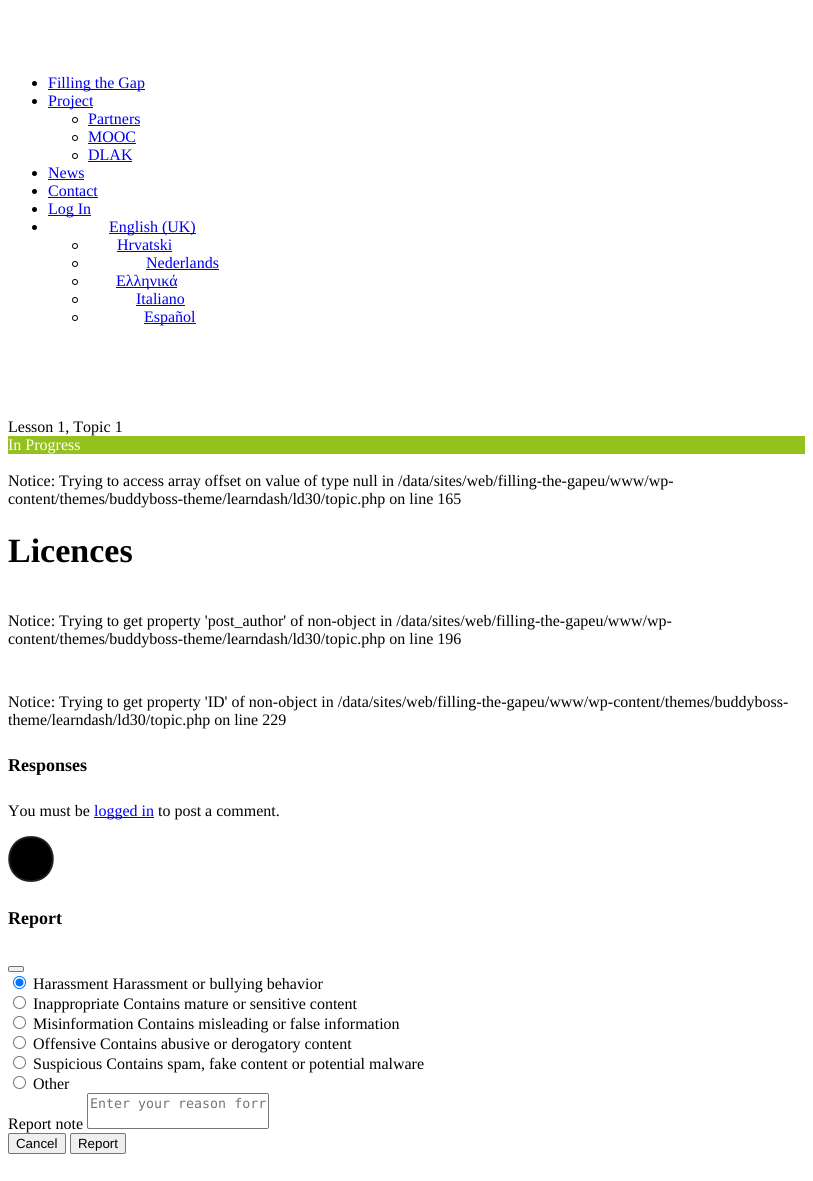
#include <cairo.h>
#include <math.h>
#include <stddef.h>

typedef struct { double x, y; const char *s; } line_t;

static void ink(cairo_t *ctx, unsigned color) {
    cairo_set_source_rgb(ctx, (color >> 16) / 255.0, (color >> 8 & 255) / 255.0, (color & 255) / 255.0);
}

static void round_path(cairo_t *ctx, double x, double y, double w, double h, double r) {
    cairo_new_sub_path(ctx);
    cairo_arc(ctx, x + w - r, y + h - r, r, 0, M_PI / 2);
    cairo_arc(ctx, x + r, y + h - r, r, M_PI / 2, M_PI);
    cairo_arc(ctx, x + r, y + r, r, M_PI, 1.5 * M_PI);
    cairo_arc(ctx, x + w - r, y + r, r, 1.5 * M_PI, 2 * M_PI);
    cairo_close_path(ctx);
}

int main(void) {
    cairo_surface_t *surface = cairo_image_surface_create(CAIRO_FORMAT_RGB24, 813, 1181);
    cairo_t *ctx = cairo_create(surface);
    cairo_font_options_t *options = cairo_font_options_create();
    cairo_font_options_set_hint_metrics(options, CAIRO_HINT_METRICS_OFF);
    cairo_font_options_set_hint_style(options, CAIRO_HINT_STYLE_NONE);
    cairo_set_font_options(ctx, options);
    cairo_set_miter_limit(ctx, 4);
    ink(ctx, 0xFFFFFF);
    cairo_paint(ctx);
    ink(ctx, 0x000000);
    cairo_arc(ctx, 34.5, 83.5, 2.5, 0, 2 * M_PI);
    cairo_fill(ctx);
    ink(ctx, 0x0000EE);
    cairo_rectangle(ctx, 48, 89, 97, 1);
    cairo_fill(ctx);
    cairo_select_font_face(ctx, "Liberation Serif", CAIRO_FONT_SLANT_NORMAL, CAIRO_FONT_WEIGHT_NORMAL);
    cairo_set_font_size(ctx, 16);
    cairo_move_to(ctx, 48, 88);
    cairo_show_text(ctx, "Filling the Gap");
    ink(ctx, 0x000000);
    cairo_new_path(ctx);
    cairo_arc(ctx, 34.5, 101.5, 2.5, 0, 2 * M_PI);
    cairo_fill(ctx);
    ink(ctx, 0x0000EE);
    cairo_rectangle(ctx, 48, 107, 45, 1);
    cairo_fill(ctx);
    cairo_move_to(ctx, 48, 106);
    cairo_show_text(ctx, "Project");
    cairo_new_path(ctx);
    cairo_arc(ctx, 75, 120, 2.5, 0, 2 * M_PI);
    ink(ctx, 0x000000);
    cairo_set_line_width(ctx, 1);
    cairo_stroke(ctx);
    ink(ctx, 0x0000EE);
    cairo_move_to(ctx, 88, 124);
    cairo_show_text(ctx, "Partners");
    cairo_rectangle(ctx, 88, 125, 52, 1);
    cairo_fill(ctx);
    cairo_arc(ctx, 75, 138, 2.5, 0, 2 * M_PI);
    ink(ctx, 0x000000);
    cairo_stroke(ctx);
    ink(ctx, 0x0000EE);
    cairo_move_to(ctx, 88, 142);
    cairo_show_text(ctx, "MOOC");
    cairo_rectangle(ctx, 88, 143, 48, 1);
    cairo_fill(ctx);
    cairo_arc(ctx, 75, 156, 2.5, 0, 2 * M_PI);
    ink(ctx, 0x000000);
    cairo_stroke(ctx);
    ink(ctx, 0x0000EE);
    cairo_move_to(ctx, 88, 160);
    cairo_show_text(ctx, "DLAK");
    cairo_rectangle(ctx, 88, 161, 44, 1);
    cairo_fill(ctx);
    ink(ctx, 0x000000);
    cairo_arc(ctx, 34.5, 173.5, 2.5, 0, 2 * M_PI);
    cairo_fill(ctx);
    ink(ctx, 0x0000EE);
    cairo_move_to(ctx, 48, 178);
    cairo_show_text(ctx, "News");
    cairo_rectangle(ctx, 48, 179, 36, 1);
    cairo_fill(ctx);
    ink(ctx, 0x000000);
    cairo_arc(ctx, 34.5, 191.5, 2.5, 0, 2 * M_PI);
    cairo_fill(ctx);
    ink(ctx, 0x0000EE);
    cairo_move_to(ctx, 48, 196);
    cairo_show_text(ctx, "Contact");
    cairo_rectangle(ctx, 48, 197, 50, 1);
    cairo_fill(ctx);
    ink(ctx, 0x000000);
    cairo_arc(ctx, 34.5, 209.5, 2.5, 0, 2 * M_PI);
    cairo_fill(ctx);
    ink(ctx, 0x0000EE);
    cairo_rectangle(ctx, 48, 215, 43, 1);
    cairo_fill(ctx);
    cairo_move_to(ctx, 48, 214);
    cairo_show_text(ctx, "Log In");
    ink(ctx, 0x000000);
    cairo_new_path(ctx);
    cairo_arc(ctx, 34.5, 227.5, 2.5, 0, 2 * M_PI);
    cairo_fill(ctx);
    ink(ctx, 0x0000EE);
    cairo_rectangle(ctx, 109, 233, 87, 1);
    cairo_fill(ctx);
    cairo_move_to(ctx, 109, 232);
    cairo_show_text(ctx, "English (UK)");
    cairo_new_path(ctx);
    cairo_arc(ctx, 75, 246, 2.5, 0, 2 * M_PI);
    ink(ctx, 0x000000);
    cairo_stroke(ctx);
    ink(ctx, 0x0000EE);
    cairo_move_to(ctx, 117, 250);
    cairo_show_text(ctx, "Hrvatski");
    cairo_rectangle(ctx, 117, 251, 55, 1);
    cairo_fill(ctx);
    cairo_arc(ctx, 75, 264, 2.5, 0, 2 * M_PI);
    ink(ctx, 0x000000);
    cairo_stroke(ctx);
    ink(ctx, 0x0000EE);
    cairo_move_to(ctx, 146, 268);
    cairo_show_text(ctx, "Nederlands");
    cairo_rectangle(ctx, 146, 269, 73, 1);
    cairo_fill(ctx);
    cairo_arc(ctx, 75, 282, 2.5, 0, 2 * M_PI);
    ink(ctx, 0x000000);
    cairo_stroke(ctx);
    ink(ctx, 0x0000EE);
    cairo_rectangle(ctx, 116, 287, 61, 1);
    cairo_fill(ctx);
    cairo_move_to(ctx, 116, 286);
    cairo_show_text(ctx, "Ελληνικά");
    cairo_new_path(ctx);
    cairo_arc(ctx, 75, 300, 2.5, 0, 2 * M_PI);
    ink(ctx, 0x000000);
    cairo_stroke(ctx);
    ink(ctx, 0x0000EE);
    cairo_move_to(ctx, 136, 304);
    cairo_show_text(ctx, "Italiano");
    cairo_rectangle(ctx, 136, 305, 49, 1);
    cairo_fill(ctx);
    cairo_arc(ctx, 75, 318, 2.5, 0, 2 * M_PI);
    ink(ctx, 0x000000);
    cairo_stroke(ctx);
    ink(ctx, 0x0000EE);
    cairo_rectangle(ctx, 144, 323, 52, 1);
    cairo_fill(ctx);
    cairo_move_to(ctx, 144, 322);
    cairo_show_text(ctx, "Español");
    ink(ctx, 0x000000);
    cairo_move_to(ctx, 8, 432);
    cairo_show_text(ctx, "Lesson 1, Topic 1");
    ink(ctx, 0x95C11F);
    cairo_rectangle(ctx, 8, 436, 797, 18);
    cairo_fill(ctx);
    ink(ctx, 0xFFFFFF);
    cairo_move_to(ctx, 8, 450);
    cairo_show_text(ctx, "In Progress");
    ink(ctx, 0x000000);
    cairo_move_to(ctx, 8, 486);
    cairo_show_text(ctx, "Notice: Trying to access array offset on value of type null in /data/sites/web/filling-the-gapeu/www/wp-");
    cairo_move_to(ctx, 8, 504);
    cairo_show_text(ctx, "content/themes/buddyboss-theme/learndash/ld30/topic.php on line 165");
    cairo_select_font_face(ctx, "Liberation Serif", CAIRO_FONT_SLANT_NORMAL, CAIRO_FONT_WEIGHT_BOLD);
    cairo_set_font_size(ctx, 34);
    cairo_move_to(ctx, 8, 562);
    cairo_show_text(ctx, "Licences");
    cairo_select_font_face(ctx, "Liberation Serif", CAIRO_FONT_SLANT_NORMAL, CAIRO_FONT_WEIGHT_NORMAL);
    cairo_set_font_size(ctx, 16);
    {
        static const line_t items[] = {
            {8, 626, "Notice: Trying to get property 'post_author' of non-object in /data/sites/web/filling-the-gapeu/www/wp-"},
            {8, 644, "content/themes/buddyboss-theme/learndash/ld30/topic.php on line 196"},
            {8, 707, "Notice: Trying to get property 'ID' of non-object in /data/sites/web/filling-the-gapeu/www/wp-content/themes/buddyboss-"},
            {8, 725, "theme/learndash/ld30/topic.php on line 229"},
        };
        for (size_t i = 0; i < sizeof items / sizeof *items; i++) {
            cairo_move_to(ctx, items[i].x, items[i].y);
            cairo_show_text(ctx, items[i].s);
        }
    }
    cairo_select_font_face(ctx, "Liberation Serif", CAIRO_FONT_SLANT_NORMAL, CAIRO_FONT_WEIGHT_BOLD);
    cairo_set_font_size(ctx, 18);
    cairo_move_to(ctx, 8, 771);
    cairo_show_text(ctx, "Responses");
    cairo_select_font_face(ctx, "Liberation Serif", CAIRO_FONT_SLANT_NORMAL, CAIRO_FONT_WEIGHT_NORMAL);
    cairo_set_font_size(ctx, 16);
    cairo_move_to(ctx, 8, 816);
    cairo_show_text(ctx, "You must be");
    ink(ctx, 0x0000EE);
    cairo_rectangle(ctx, 94, 817, 60, 1);
    cairo_fill(ctx);
    cairo_move_to(ctx, 94, 816);
    cairo_show_text(ctx, "logged in");
    ink(ctx, 0x000000);
    cairo_move_to(ctx, 158, 816);
    cairo_show_text(ctx, "to post a comment.");
    cairo_new_path(ctx);
    cairo_arc(ctx, 31, 859, 22, 0, 2 * M_PI);
    ink(ctx, 0xCCCCCC);
    cairo_set_line_width(ctx, 2);
    cairo_stroke(ctx);
    ink(ctx, 0x000000);
    cairo_new_path(ctx);
    cairo_move_to(ctx, 31, 837);
    cairo_curve_to(ctx, 60, 837, 60, 881, 31, 881);
    cairo_curve_to(ctx, 2, 881, 2, 837, 31, 837);
    cairo_fill_preserve(ctx);
    ink(ctx, 0x1F2029);
    cairo_set_line_width(ctx, 1.8);
    cairo_stroke(ctx);
    cairo_select_font_face(ctx, "Liberation Serif", CAIRO_FONT_SLANT_NORMAL, CAIRO_FONT_WEIGHT_BOLD);
    cairo_set_font_size(ctx, 18);
    ink(ctx, 0x000000);
    cairo_move_to(ctx, 8, 924);
    cairo_show_text(ctx, "Report");
    ink(ctx, 0xEFEFEF);
    round_path(ctx, 8.5, 966.5, 15, 5, 1.5);
    cairo_fill_preserve(ctx);
    ink(ctx, 0x767676);
    cairo_set_line_width(ctx, 1);
    cairo_stroke(ctx);
    cairo_arc(ctx, 19.5, 982.5, 6, 0, 2 * M_PI);
    ink(ctx, 0x0075FF);
    cairo_stroke(ctx);
    cairo_arc(ctx, 19.5, 982.5, 4, 0, 2 * M_PI);
    cairo_fill(ctx);
    cairo_select_font_face(ctx, "Liberation Serif", CAIRO_FONT_SLANT_NORMAL, CAIRO_FONT_WEIGHT_NORMAL);
    cairo_set_font_size(ctx, 16);
    ink(ctx, 0x000000);
    cairo_move_to(ctx, 33, 989);
    cairo_show_text(ctx, "Harassment Harassment or bullying behavior");
    cairo_new_path(ctx);
    cairo_arc(ctx, 19.5, 1002.5, 6, 0, 2 * M_PI);
    ink(ctx, 0x767676);
    cairo_stroke(ctx);
    ink(ctx, 0x000000);
    cairo_move_to(ctx, 33, 1009);
    cairo_show_text(ctx, "Inappropriate Contains mature or sensitive content");
    cairo_new_path(ctx);
    cairo_arc(ctx, 19.5, 1022.5, 6, 0, 2 * M_PI);
    ink(ctx, 0x767676);
    cairo_stroke(ctx);
    ink(ctx, 0x000000);
    cairo_move_to(ctx, 33, 1029);
    cairo_show_text(ctx, "Misinformation Contains misleading or false information");
    cairo_new_path(ctx);
    cairo_arc(ctx, 19.5, 1042.5, 6, 0, 2 * M_PI);
    ink(ctx, 0x767676);
    cairo_stroke(ctx);
    ink(ctx, 0x000000);
    cairo_move_to(ctx, 33, 1049);
    cairo_show_text(ctx, "Offensive Contains abusive or derogatory content");
    cairo_new_path(ctx);
    cairo_arc(ctx, 19.5, 1062.5, 6, 0, 2 * M_PI);
    ink(ctx, 0x767676);
    cairo_stroke(ctx);
    ink(ctx, 0x000000);
    cairo_move_to(ctx, 33, 1069);
    cairo_show_text(ctx, "Suspicious Contains spam, fake content or potential malware");
    cairo_new_path(ctx);
    cairo_arc(ctx, 19.5, 1082.5, 6, 0, 2 * M_PI);
    ink(ctx, 0x767676);
    cairo_stroke(ctx);
    ink(ctx, 0x000000);
    cairo_move_to(ctx, 33, 1089);
    cairo_show_text(ctx, "Other");
    round_path(ctx, 87.5, 1093.5, 181, 35, 1.5);
    ink(ctx, 0x767676);
    cairo_stroke(ctx);
    cairo_select_font_face(ctx, "DejaVu Sans Mono", CAIRO_FONT_SLANT_NORMAL, CAIRO_FONT_WEIGHT_NORMAL);
    cairo_set_font_size(ctx, 13.3);
    ink(ctx, 0x757575);
    cairo_move_to(ctx, 90, 1108);
    cairo_show_text(ctx, "Enter your reason forr");
    cairo_select_font_face(ctx, "Liberation Serif", CAIRO_FONT_SLANT_NORMAL, CAIRO_FONT_WEIGHT_NORMAL);
    cairo_set_font_size(ctx, 16);
    ink(ctx, 0x000000);
    cairo_move_to(ctx, 8, 1129);
    cairo_show_text(ctx, "Report note");
    ink(ctx, 0xEFEFEF);
    round_path(ctx, 8.5, 1133.5, 57, 20, 1.5);
    cairo_fill_preserve(ctx);
    ink(ctx, 0x767676);
    cairo_stroke(ctx);
    cairo_select_font_face(ctx, "Liberation Sans", CAIRO_FONT_SLANT_NORMAL, CAIRO_FONT_WEIGHT_NORMAL);
    cairo_set_font_size(ctx, 13.3);
    ink(ctx, 0x000000);
    cairo_move_to(ctx, 16, 1148);
    cairo_show_text(ctx, "Cancel");
    ink(ctx, 0xEFEFEF);
    round_path(ctx, 70.5, 1133.5, 55, 20, 1.5);
    cairo_fill_preserve(ctx);
    ink(ctx, 0x767676);
    cairo_stroke(ctx);
    ink(ctx, 0x000000);
    cairo_move_to(ctx, 78, 1148);
    cairo_show_text(ctx, "Report");
    cairo_surface_write_to_png(surface, "image.png");
    cairo_font_options_destroy(options);
    cairo_destroy(ctx);
    cairo_surface_destroy(surface);
    return 0;
}
